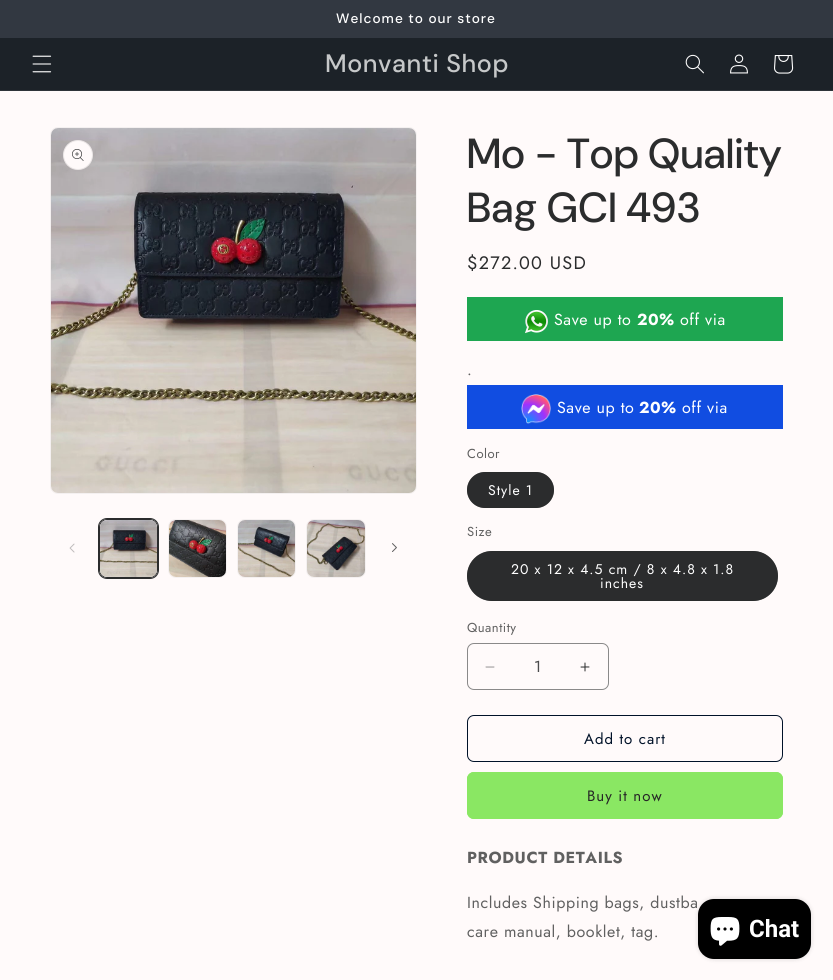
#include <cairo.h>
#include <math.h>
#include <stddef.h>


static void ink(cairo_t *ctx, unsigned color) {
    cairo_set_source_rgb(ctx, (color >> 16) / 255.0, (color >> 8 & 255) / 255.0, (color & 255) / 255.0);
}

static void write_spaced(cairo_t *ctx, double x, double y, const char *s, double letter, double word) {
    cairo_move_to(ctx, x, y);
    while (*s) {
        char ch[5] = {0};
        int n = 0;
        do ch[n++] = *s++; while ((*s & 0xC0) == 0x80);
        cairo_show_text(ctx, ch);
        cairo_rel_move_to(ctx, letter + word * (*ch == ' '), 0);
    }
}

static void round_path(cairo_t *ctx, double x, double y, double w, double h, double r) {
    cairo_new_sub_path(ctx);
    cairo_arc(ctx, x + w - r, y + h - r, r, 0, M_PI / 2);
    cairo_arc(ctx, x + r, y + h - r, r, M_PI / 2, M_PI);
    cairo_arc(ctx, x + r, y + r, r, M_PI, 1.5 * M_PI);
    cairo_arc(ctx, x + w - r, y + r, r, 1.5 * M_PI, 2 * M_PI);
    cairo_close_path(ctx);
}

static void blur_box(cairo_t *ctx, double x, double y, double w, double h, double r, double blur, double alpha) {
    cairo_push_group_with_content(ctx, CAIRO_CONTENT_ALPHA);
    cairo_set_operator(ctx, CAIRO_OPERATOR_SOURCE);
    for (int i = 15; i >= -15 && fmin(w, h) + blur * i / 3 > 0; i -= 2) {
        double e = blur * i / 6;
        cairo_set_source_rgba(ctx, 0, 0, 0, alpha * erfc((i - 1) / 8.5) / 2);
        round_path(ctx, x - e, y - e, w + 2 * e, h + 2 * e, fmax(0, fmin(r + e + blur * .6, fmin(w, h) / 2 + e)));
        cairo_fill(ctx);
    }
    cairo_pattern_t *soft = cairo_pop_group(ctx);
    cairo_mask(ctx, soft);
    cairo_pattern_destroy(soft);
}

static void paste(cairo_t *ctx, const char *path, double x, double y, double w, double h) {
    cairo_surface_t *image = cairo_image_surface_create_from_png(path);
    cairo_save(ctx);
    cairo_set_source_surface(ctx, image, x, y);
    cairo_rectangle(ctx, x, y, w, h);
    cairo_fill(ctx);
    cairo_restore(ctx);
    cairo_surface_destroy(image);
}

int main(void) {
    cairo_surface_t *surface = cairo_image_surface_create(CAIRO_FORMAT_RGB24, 833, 980);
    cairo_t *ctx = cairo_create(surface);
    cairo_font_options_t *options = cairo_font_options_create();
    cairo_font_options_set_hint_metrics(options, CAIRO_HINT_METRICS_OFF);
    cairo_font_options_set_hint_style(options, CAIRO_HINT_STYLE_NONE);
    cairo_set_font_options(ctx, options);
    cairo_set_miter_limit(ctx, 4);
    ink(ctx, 0xFFFAFA);
    cairo_paint(ctx);
    ink(ctx, 0x323841);
    cairo_rectangle(ctx, 0, 0, 833, 38);
    cairo_fill(ctx);
    cairo_select_font_face(ctx, "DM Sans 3 Medium", CAIRO_FONT_SLANT_NORMAL, CAIRO_FONT_WEIGHT_NORMAL);
    cairo_set_font_size(ctx, 13.6);
    ink(ctx, 0xFFFFFF);
    write_spaced(ctx, 336, 23, "Welcome to our store", 1, 0);
    ink(ctx, 0x1C2228);
    cairo_rectangle(ctx, 0, 38, 833, 52);
    cairo_fill(ctx);
    ink(ctx, 0x2E3439);
    cairo_rectangle(ctx, 0, 90, 833, 1);
    cairo_fill(ctx);
    paste(ctx, "media/1.png", 32, 55, 20, 18);
    cairo_select_font_face(ctx, "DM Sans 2 Medium", CAIRO_FONT_SLANT_NORMAL, CAIRO_FONT_WEIGHT_NORMAL);
    cairo_set_font_size(ctx, 25.25);
    ink(ctx, 0xC6C8C9);
    write_spaced(ctx, 325, 72, "Monvanti Shop", 0.6, 0);
    paste(ctx, "media/2.png", 685, 54, 19, 20);
    paste(ctx, "media/3.png", 730, 54, 18, 20);
    paste(ctx, "media/4.png", 774, 55, 20, 19);
    round_path(ctx, 50.5, 127.5, 366, 366, 7.5);
    ink(ctx, 0xF4F0F0);
    cairo_set_line_width(ctx, 1);
    cairo_stroke(ctx);
    paste(ctx, "media/5.png", 51, 128, 365, 365);
    ink(ctx, 0xFFFAFA);
    cairo_arc(ctx, 78, 155, 15, 0, 2 * M_PI);
    cairo_fill(ctx);
    cairo_arc(ctx, 78, 155, 14.5, 0, 2 * M_PI);
    cairo_set_source_rgba(ctx, 0.169, 0.173, 0.176, 0.1);
    cairo_stroke(ctx);
    paste(ctx, "media/6.png", 72, 149, 12, 12);
    paste(ctx, "media/7.png", 69, 543, 6, 10);
    round_path(ctx, 98.5, 518.5, 60, 60, 8.5);
    ink(ctx, 0x2B2C2D);
    cairo_stroke(ctx);
    round_path(ctx, 99.5, 519.5, 58, 58, 7.5);
    cairo_stroke(ctx);
    paste(ctx, "media/8.png", 100, 520, 57, 57);
    round_path(ctx, 168.5, 519.5, 58, 58, 7.5);
    ink(ctx, 0xF4F0F0);
    cairo_stroke(ctx);
    paste(ctx, "media/9.png", 169, 520, 57, 57);
    round_path(ctx, 237.5, 519.5, 58, 58, 7.5);
    cairo_stroke(ctx);
    paste(ctx, "media/10.png", 238, 520, 57, 57);
    round_path(ctx, 306.5, 519.5, 59, 58, 7.5);
    cairo_stroke(ctx);
    paste(ctx, "media/11.png", 307, 520, 58, 57);
    paste(ctx, "media/12.png", 392, 543, 5, 9);
    cairo_select_font_face(ctx, "DM Sans Medium", CAIRO_FONT_SLANT_NORMAL, CAIRO_FONT_WEIGHT_NORMAL);
    cairo_set_font_size(ctx, 42);
    ink(ctx, 0x2B2C2D);
    write_spaced(ctx, 467, 168, "Mo - Top Quality", 0.6, 0);
    write_spaced(ctx, 467, 222, "Bag GCI 493", 0.6, 0);
    cairo_select_font_face(ctx, "Jost", CAIRO_FONT_SLANT_NORMAL, CAIRO_FONT_WEIGHT_NORMAL);
    cairo_set_font_size(ctx, 18);
    write_spaced(ctx, 467, 269, "$272.00 USD", 1.25, 0);
    ink(ctx, 0x1EA651);
    cairo_rectangle(ctx, 467, 297, 316, 44);
    cairo_fill(ctx);
    paste(ctx, "media/13.png", 525, 310, 23, 24);
    cairo_set_font_size(ctx, 16);
    ink(ctx, 0xFFFFFF);
    write_spaced(ctx, 554, 325, "Save up to", 0.6, 0);
    cairo_select_font_face(ctx, "Jost", CAIRO_FONT_SLANT_NORMAL, CAIRO_FONT_WEIGHT_BOLD);
    write_spaced(ctx, 637, 325, "20%", 0.6, 0);
    cairo_select_font_face(ctx, "Jost", CAIRO_FONT_SLANT_NORMAL, CAIRO_FONT_WEIGHT_NORMAL);
    write_spaced(ctx, 680, 325, "off via", 0.6, 0);
    ink(ctx, 0x606060);
    write_spaced(ctx, 467, 375, ".", 0.6, 0);
    ink(ctx, 0x114DE1);
    cairo_rectangle(ctx, 467, 385, 316, 44);
    cairo_fill(ctx);
    paste(ctx, "media/14.png", 521, 394, 30, 30);
    ink(ctx, 0xFFFFFF);
    write_spaced(ctx, 557, 413, "Save up to", 0.6, 0);
    cairo_select_font_face(ctx, "Jost", CAIRO_FONT_SLANT_NORMAL, CAIRO_FONT_WEIGHT_BOLD);
    write_spaced(ctx, 639, 413, "20%", 0.6, 0);
    cairo_select_font_face(ctx, "Jost", CAIRO_FONT_SLANT_NORMAL, CAIRO_FONT_WEIGHT_NORMAL);
    write_spaced(ctx, 682, 413, "off via", 0.6, 0);
    cairo_set_font_size(ctx, 13);
    ink(ctx, 0x606060);
    write_spaced(ctx, 467, 458, "Color", 0.5, 0);
    ink(ctx, 0x2B2C2D);
    round_path(ctx, 467, 472, 87, 36, 18);
    cairo_fill(ctx);
    round_path(ctx, 467.5, 472.5, 86, 35, 17.5);
    cairo_set_source_rgba(ctx, 0.169, 0.173, 0.176, 0.55);
    cairo_stroke(ctx);
    cairo_set_font_size(ctx, 14);
    ink(ctx, 0xFFFFFF);
    write_spaced(ctx, 488, 495, "Style 1", 1, 0);
    cairo_set_font_size(ctx, 13);
    ink(ctx, 0x606060);
    write_spaced(ctx, 467, 536, "Size", 0.5, 0);
    ink(ctx, 0x2B2C2D);
    round_path(ctx, 467, 551, 311, 50, 25);
    cairo_fill(ctx);
    round_path(ctx, 467.5, 551.5, 310, 49, 24.5);
    cairo_set_source_rgba(ctx, 0.169, 0.173, 0.176, 0.55);
    cairo_stroke(ctx);
    cairo_set_font_size(ctx, 14);
    ink(ctx, 0xFFFFFF);
    write_spaced(ctx, 511, 574, "20 x 12 x 4.5 cm / 8 x 4.8 x 1.8", 1, 0);
    write_spaced(ctx, 600, 588, "inches", 1, 0);
    cairo_set_font_size(ctx, 13);
    ink(ctx, 0x606060);
    write_spaced(ctx, 467, 632, "Quantity", 0.5, 0);
    paste(ctx, "media/15.png", 485, 666, 10, 2);
    paste(ctx, "media/16.png", 580, 662, 10, 10);
    round_path(ctx, 467.5, 643.5, 141, 46, 6.5);
    ink(ctx, 0x8A8989);
    cairo_stroke(ctx);
    cairo_set_font_size(ctx, 16);
    ink(ctx, 0x4B4B4C);
    cairo_move_to(ctx, 534, 672);
    cairo_show_text(ctx, "1");
    round_path(ctx, 467.5, 715.5, 315, 46, 6.5);
    ink(ctx, 0x001128);
    cairo_stroke(ctx);
    cairo_set_font_size(ctx, 15);
    write_spaced(ctx, 584, 744, "Add to cart", 1, 0);
    ink(ctx, 0x8AE763);
    round_path(ctx, 467, 772, 316, 47, 7);
    cairo_fill(ctx);
    round_path(ctx, 467.5, 772.5, 315, 46, 6.5);
    cairo_stroke(ctx);
    ink(ctx, 0x262626);
    write_spaced(ctx, 587, 801, "Buy it now", 1, 0);
    cairo_select_font_face(ctx, "Jost", CAIRO_FONT_SLANT_NORMAL, CAIRO_FONT_WEIGHT_BOLD);
    cairo_set_font_size(ctx, 16);
    ink(ctx, 0x606060);
    write_spaced(ctx, 467, 863, "PRODUCT DETAILS", 0.6, 0);
    cairo_select_font_face(ctx, "Jost", CAIRO_FONT_SLANT_NORMAL, CAIRO_FONT_WEIGHT_NORMAL);
    write_spaced(ctx, 467, 908, "Includes Shipping bags, dustba", 0.6, 0);
    write_spaced(ctx, 467, 937, "care manual, booklet, tag.", 0.6, 0);
    ink(ctx, 0x000000);
    blur_box(ctx, 698, 899, 113, 60, 16, 2.5, 0.15);
    ink(ctx, 0x000000);
    round_path(ctx, 698, 899, 113, 60, 16);
    cairo_fill(ctx);
    paste(ctx, "media/17.png", 710, 917, 30, 29);
    cairo_select_font_face(ctx, "Roboto", CAIRO_FONT_SLANT_NORMAL, CAIRO_FONT_WEIGHT_BOLD);
    cairo_set_font_size(ctx, 24);
    ink(ctx, 0xFFFFFF);
    cairo_move_to(ctx, 749, 937);
    cairo_show_text(ctx, "Chat");
    cairo_surface_write_to_png(surface, "image.png");
    cairo_font_options_destroy(options);
    cairo_destroy(ctx);
    cairo_surface_destroy(surface);
    return 0;
}
